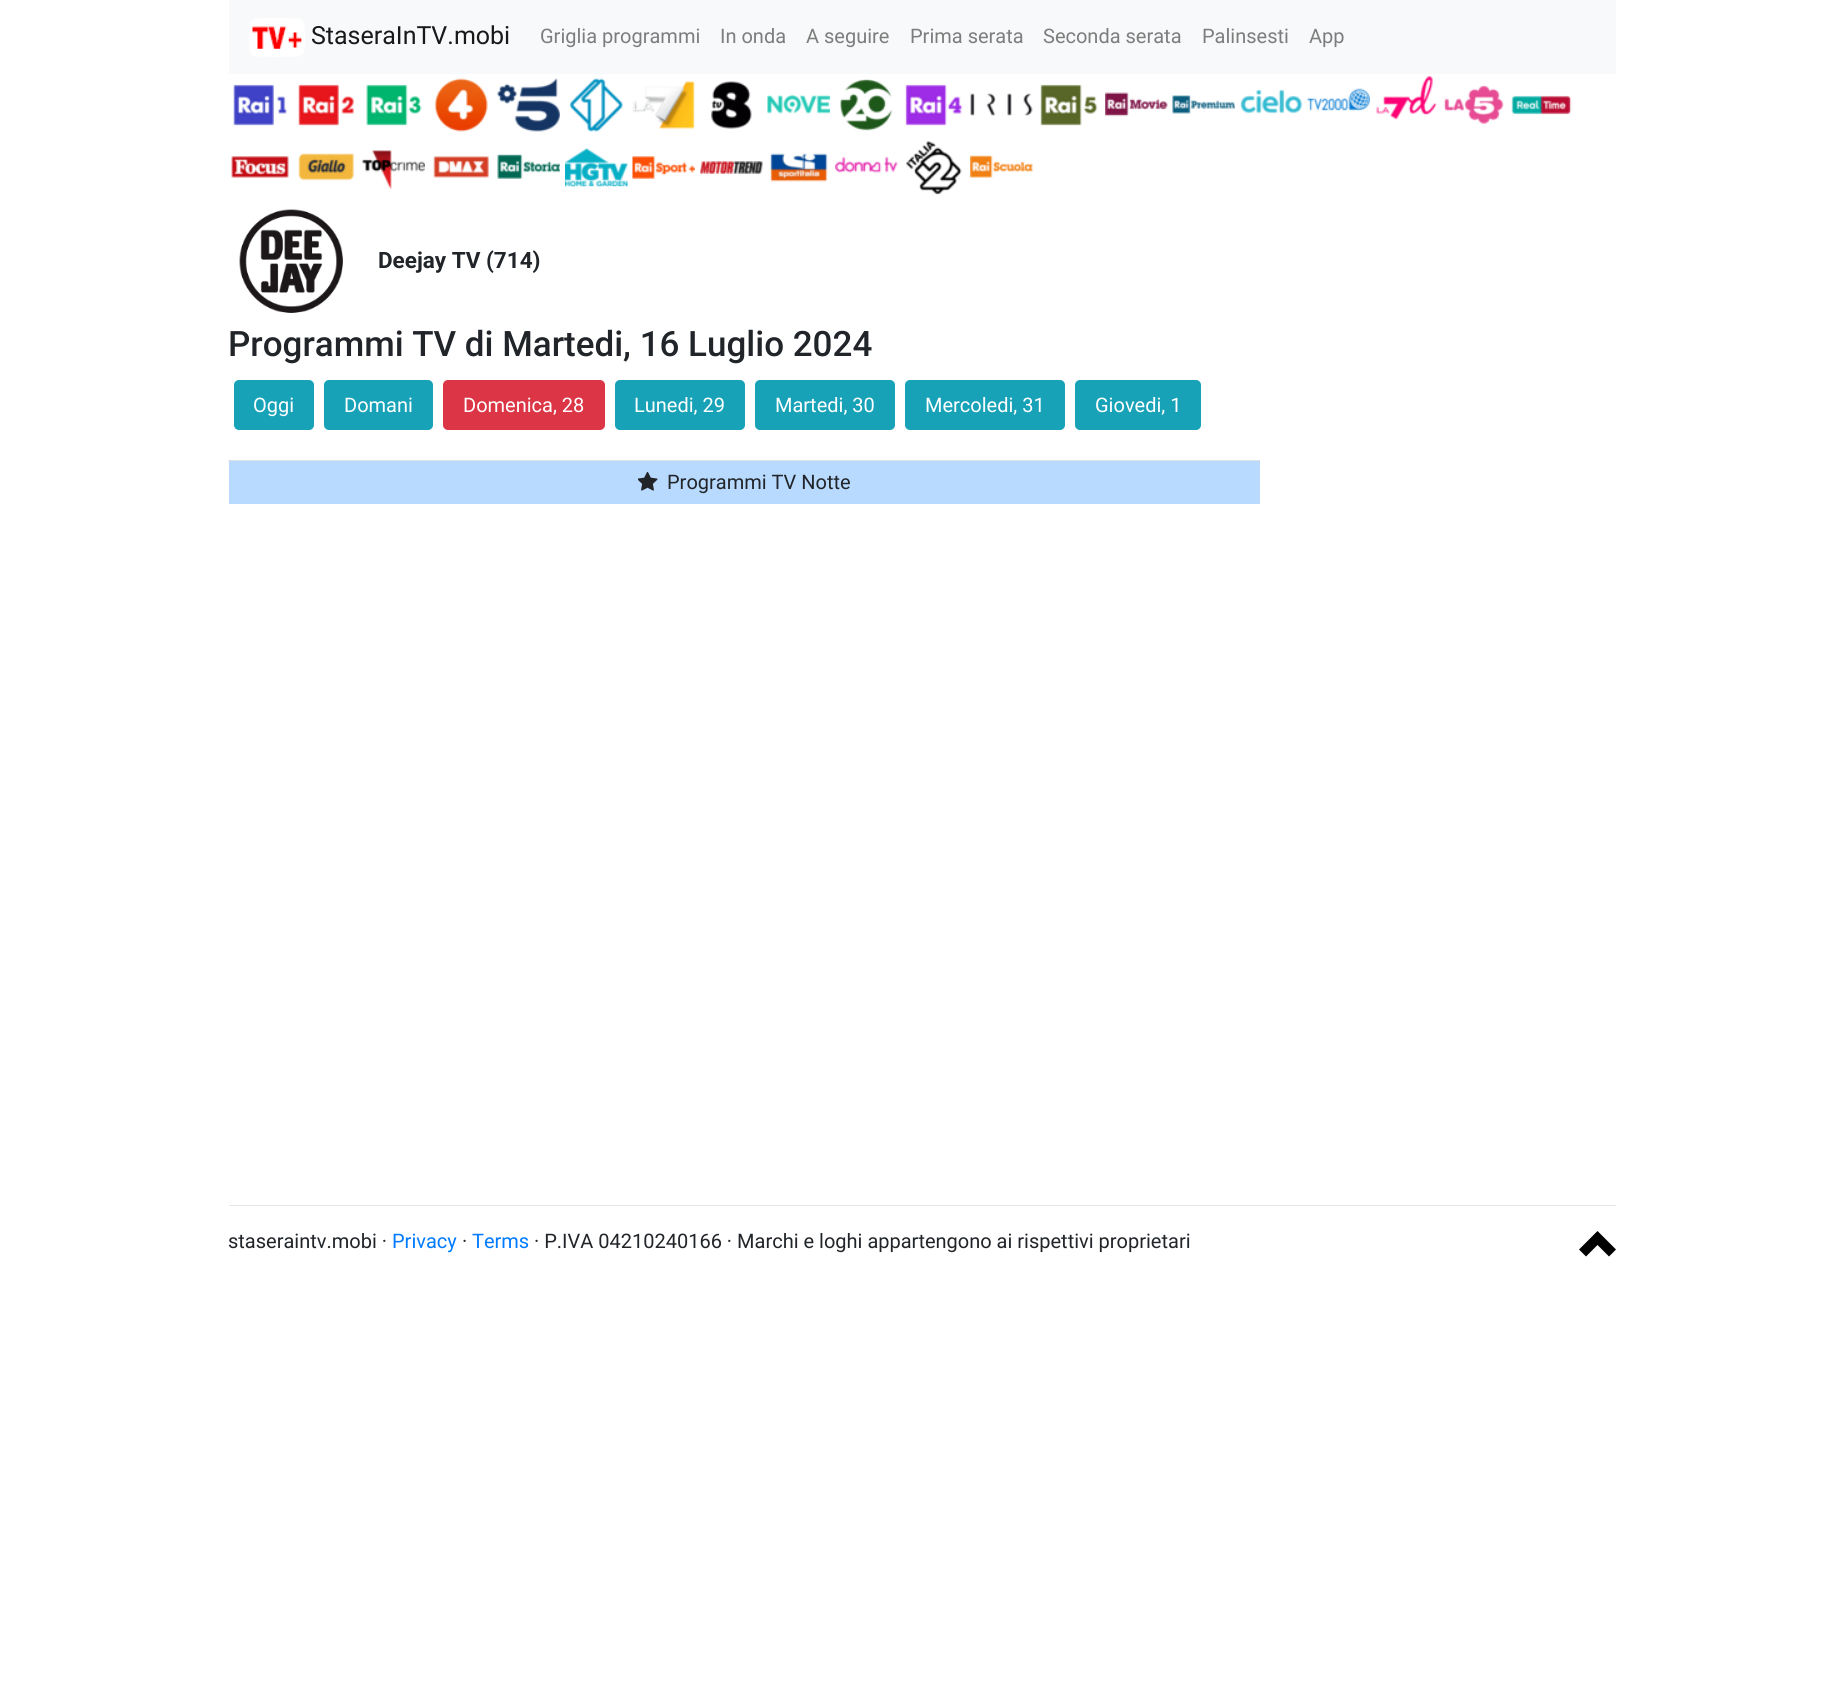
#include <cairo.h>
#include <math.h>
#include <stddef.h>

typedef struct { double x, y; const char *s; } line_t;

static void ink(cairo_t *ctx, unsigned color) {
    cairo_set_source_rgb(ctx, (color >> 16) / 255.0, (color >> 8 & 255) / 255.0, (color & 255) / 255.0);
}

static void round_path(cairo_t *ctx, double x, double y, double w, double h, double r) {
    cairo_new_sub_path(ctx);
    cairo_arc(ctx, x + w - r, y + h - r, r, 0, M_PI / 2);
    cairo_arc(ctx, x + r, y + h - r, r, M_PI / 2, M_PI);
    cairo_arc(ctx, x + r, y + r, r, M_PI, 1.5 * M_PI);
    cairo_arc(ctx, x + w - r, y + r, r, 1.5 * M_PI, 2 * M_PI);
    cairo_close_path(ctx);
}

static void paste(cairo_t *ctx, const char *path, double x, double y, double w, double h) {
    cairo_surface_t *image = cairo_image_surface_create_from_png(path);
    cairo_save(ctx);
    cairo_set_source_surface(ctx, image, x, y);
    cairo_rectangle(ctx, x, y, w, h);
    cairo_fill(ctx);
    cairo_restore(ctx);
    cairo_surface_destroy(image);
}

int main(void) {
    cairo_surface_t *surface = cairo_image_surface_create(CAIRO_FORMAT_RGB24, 1843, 1706);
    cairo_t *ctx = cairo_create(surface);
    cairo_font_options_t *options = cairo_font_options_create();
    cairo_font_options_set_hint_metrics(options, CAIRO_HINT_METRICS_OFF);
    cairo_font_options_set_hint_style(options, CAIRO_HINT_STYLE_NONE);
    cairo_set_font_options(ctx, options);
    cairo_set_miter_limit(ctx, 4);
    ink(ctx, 0xFFFFFF);
    cairo_paint(ctx);
    ink(ctx, 0xF8F9FA);
    cairo_rectangle(ctx, 229, 0, 1387, 74);
    cairo_fill(ctx);
    paste(ctx, "media/1.png", 249, 18, 56, 39);
    cairo_select_font_face(ctx, "Roboto", CAIRO_FONT_SLANT_NORMAL, CAIRO_FONT_WEIGHT_NORMAL);
    cairo_set_font_size(ctx, 25);
    ink(ctx, 0x191919);
    cairo_move_to(ctx, 311, 44);
    cairo_show_text(ctx, "StaseraInTV.mobi");
    cairo_set_font_size(ctx, 20);
    ink(ctx, 0x7C7D7D);
    {
        static const line_t items[] = {
            {540, 43, "Griglia programmi"},
            {720, 43, "In onda"},
            {806, 43, "A seguire"},
            {910, 43, "Prima serata"},
            {1043, 43, "Seconda serata"},
            {1202, 43, "Palinsesti"},
            {1309, 43, "App"},
        };
        for (size_t i = 0; i < sizeof items / sizeof *items; i++) {
            cairo_move_to(ctx, items[i].x, items[i].y);
            cairo_show_text(ctx, items[i].s);
        }
    }
    paste(ctx, "media/2.png", 233, 84, 54, 42);
    paste(ctx, "media/3.png", 298, 84, 56, 42);
    paste(ctx, "media/4.png", 366, 84, 56, 42);
    paste(ctx, "media/5.png", 434, 78, 54, 54);
    paste(ctx, "media/6.png", 497, 78, 63, 54);
    paste(ctx, "media/7.png", 569, 78, 54, 54);
    paste(ctx, "media/8.png", 632, 81, 63, 48);
    paste(ctx, "media/9.png", 711, 81, 41, 48);
    paste(ctx, "media/10.png", 767, 94, 63, 20);
    paste(ctx, "media/11.png", 840, 79, 53, 52);
    paste(ctx, "media/12.png", 905, 84, 58, 42);
    paste(ctx, "media/13.png", 970, 93, 63, 23);
    paste(ctx, "media/14.png", 1040, 84, 58, 42);
    paste(ctx, "media/15.png", 1105, 92, 63, 25);
    paste(ctx, "media/16.png", 1172, 95, 63, 19);
    paste(ctx, "media/17.png", 1240, 89, 63, 25);
    paste(ctx, "media/18.png", 1307, 88, 63, 23);
    paste(ctx, "media/19.png", 1376, 76, 61, 44);
    paste(ctx, "media/20.png", 1443, 85, 61, 39);
    paste(ctx, "media/21.png", 1511, 95, 61, 20);
    paste(ctx, "media/22.png", 231, 156, 58, 22);
    paste(ctx, "media/23.png", 298, 153, 56, 28);
    paste(ctx, "media/24.png", 362, 150, 63, 39);
    paste(ctx, "media/25.png", 433, 156, 56, 22);
    paste(ctx, "media/26.png", 497, 154, 63, 25);
    paste(ctx, "media/27.png", 565, 148, 63, 39);
    paste(ctx, "media/28.png", 632, 156, 63, 23);
    paste(ctx, "media/29.png", 700, 161, 63, 13);
    paste(ctx, "media/30.png", 770, 153, 58, 29);
    paste(ctx, "media/31.png", 835, 156, 63, 17);
    paste(ctx, "media/32.png", 906, 141, 56, 54);
    paste(ctx, "media/33.png", 970, 155, 63, 23);
    paste(ctx, "media/34.png", 239, 209, 104, 104);
    cairo_select_font_face(ctx, "Roboto", CAIRO_FONT_SLANT_NORMAL, CAIRO_FONT_WEIGHT_BOLD);
    cairo_set_font_size(ctx, 22.5);
    ink(ctx, 0x212529);
    cairo_move_to(ctx, 378, 268);
    cairo_show_text(ctx, "Deejay TV (714)");
    cairo_select_font_face(ctx, "Roboto Medium", CAIRO_FONT_SLANT_NORMAL, CAIRO_FONT_WEIGHT_NORMAL);
    cairo_set_font_size(ctx, 35);
    cairo_move_to(ctx, 228, 356);
    cairo_show_text(ctx, "Programmi TV di Martedi, 16 Luglio 2024");
    ink(ctx, 0x17A2B8);
    round_path(ctx, 234, 380, 80, 50, 5);
    cairo_fill(ctx);
    cairo_select_font_face(ctx, "Roboto", CAIRO_FONT_SLANT_NORMAL, CAIRO_FONT_WEIGHT_NORMAL);
    cairo_set_font_size(ctx, 20);
    ink(ctx, 0xFFFFFF);
    cairo_move_to(ctx, 253, 412);
    cairo_show_text(ctx, "Oggi");
    ink(ctx, 0x17A2B8);
    round_path(ctx, 324, 380, 109, 50, 5);
    cairo_fill(ctx);
    ink(ctx, 0xFFFFFF);
    cairo_move_to(ctx, 344, 412);
    cairo_show_text(ctx, "Domani");
    ink(ctx, 0xDC3545);
    round_path(ctx, 443, 380, 162, 50, 5);
    cairo_fill(ctx);
    ink(ctx, 0xFFFFFF);
    cairo_move_to(ctx, 463, 412);
    cairo_show_text(ctx, "Domenica, 28");
    ink(ctx, 0x17A2B8);
    round_path(ctx, 615, 380, 130, 50, 5);
    cairo_fill(ctx);
    ink(ctx, 0xFFFFFF);
    cairo_move_to(ctx, 634, 412);
    cairo_show_text(ctx, "Lunedi, 29");
    ink(ctx, 0x17A2B8);
    round_path(ctx, 755, 380, 140, 50, 5);
    cairo_fill(ctx);
    ink(ctx, 0xFFFFFF);
    cairo_move_to(ctx, 775, 412);
    cairo_show_text(ctx, "Martedi, 30");
    ink(ctx, 0x17A2B8);
    round_path(ctx, 905, 380, 160, 50, 5);
    cairo_fill(ctx);
    ink(ctx, 0xFFFFFF);
    cairo_move_to(ctx, 925, 412);
    cairo_show_text(ctx, "Mercoledi, 31");
    ink(ctx, 0x17A2B8);
    round_path(ctx, 1075, 380, 126, 50, 5);
    cairo_fill(ctx);
    ink(ctx, 0xFFFFFF);
    cairo_move_to(ctx, 1095, 412);
    cairo_show_text(ctx, "Giovedi, 1");
    ink(ctx, 0xB8DAFF);
    cairo_rectangle(ctx, 229, 461, 1031, 43);
    cairo_fill(ctx);
    ink(ctx, 0xDEE2E6);
    cairo_rectangle(ctx, 228, 460, 1032, 1);
    cairo_fill(ctx);
    paste(ctx, "media/35.png", 638, 471, 20, 20);
    ink(ctx, 0x212529);
    cairo_move_to(ctx, 667, 489);
    cairo_show_text(ctx, "Programmi TV Notte");
    ink(ctx, 0xE6E6E6);
    cairo_rectangle(ctx, 229, 1205, 1387, 1);
    cairo_fill(ctx);
    ink(ctx, 0x212529);
    cairo_move_to(ctx, 228, 1248);
    cairo_show_text(ctx, "staseraintv.mobi ·");
    ink(ctx, 0x007BFF);
    cairo_move_to(ctx, 392, 1248);
    cairo_show_text(ctx, "Privacy");
    ink(ctx, 0x212529);
    cairo_move_to(ctx, 462, 1248);
    cairo_show_text(ctx, "·");
    ink(ctx, 0x007BFF);
    cairo_move_to(ctx, 472, 1248);
    cairo_show_text(ctx, "Terms");
    ink(ctx, 0x212529);
    cairo_move_to(ctx, 534, 1248);
    cairo_show_text(ctx, "· P.IVA 04210240166 · Marchi e loghi appartengono ai rispettivi proprietari");
    ink(ctx, 0x000000);
    cairo_new_path(ctx);
    cairo_move_to(ctx, 1597.5, 1231);
    cairo_line_to(ctx, 1579, 1249.5);
    cairo_line_to(ctx, 1586, 1256.5);
    cairo_line_to(ctx, 1597.5, 1245);
    cairo_line_to(ctx, 1609, 1256.5);
    cairo_line_to(ctx, 1616, 1249.5);
    cairo_close_path(ctx);
    cairo_fill(ctx);
    cairo_surface_write_to_png(surface, "image.png");
    cairo_font_options_destroy(options);
    cairo_destroy(ctx);
    cairo_surface_destroy(surface);
    return 0;
}
